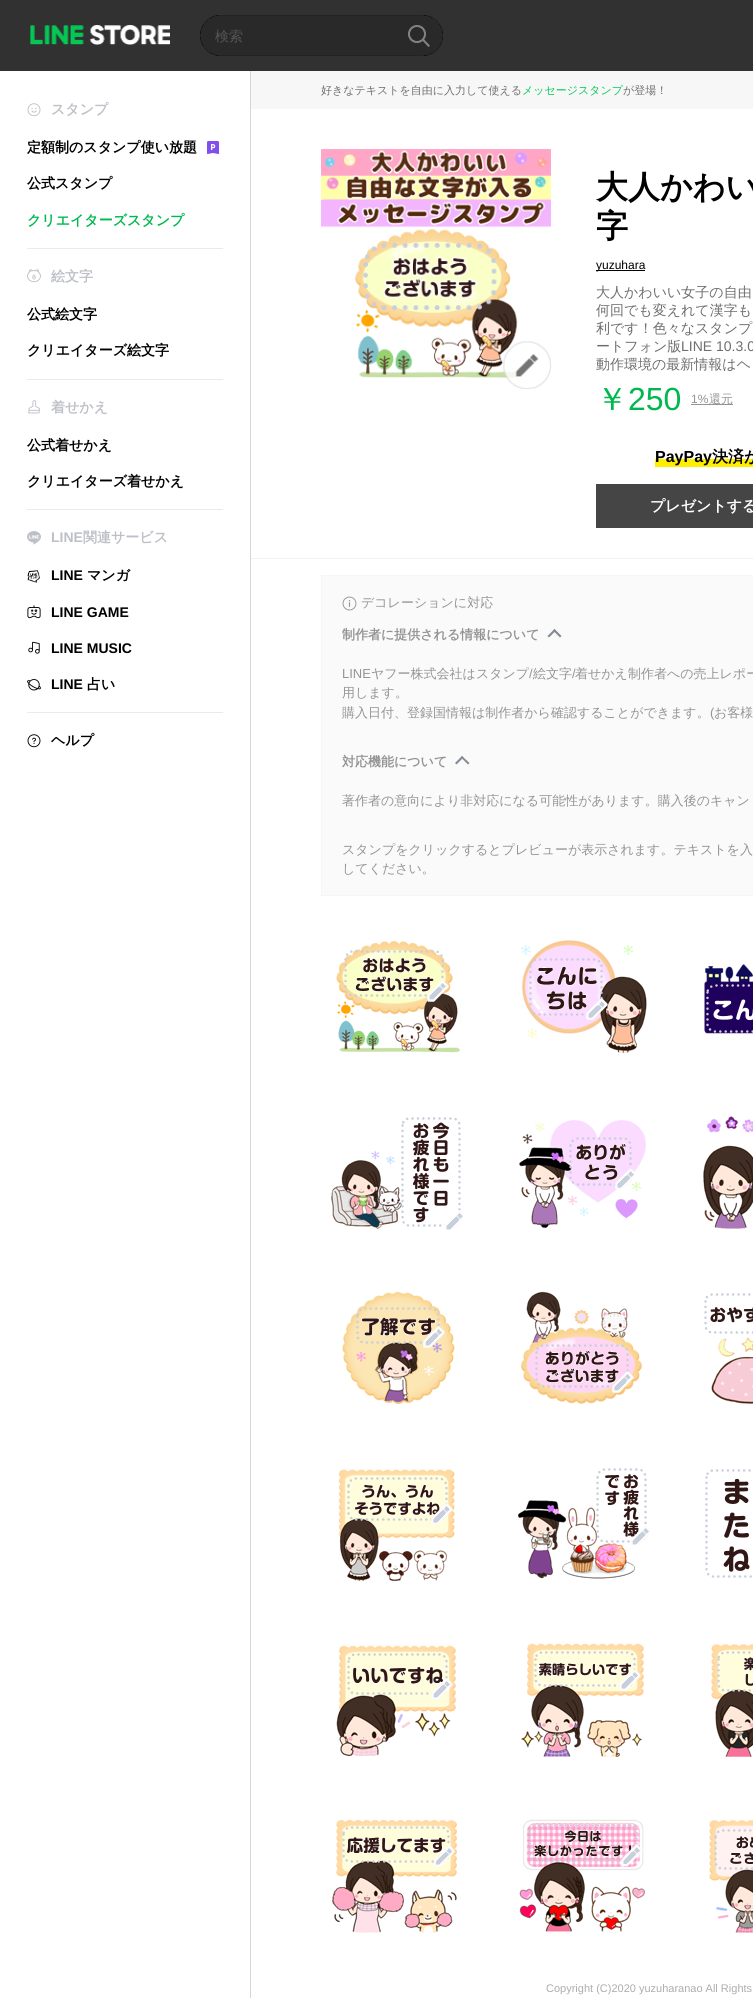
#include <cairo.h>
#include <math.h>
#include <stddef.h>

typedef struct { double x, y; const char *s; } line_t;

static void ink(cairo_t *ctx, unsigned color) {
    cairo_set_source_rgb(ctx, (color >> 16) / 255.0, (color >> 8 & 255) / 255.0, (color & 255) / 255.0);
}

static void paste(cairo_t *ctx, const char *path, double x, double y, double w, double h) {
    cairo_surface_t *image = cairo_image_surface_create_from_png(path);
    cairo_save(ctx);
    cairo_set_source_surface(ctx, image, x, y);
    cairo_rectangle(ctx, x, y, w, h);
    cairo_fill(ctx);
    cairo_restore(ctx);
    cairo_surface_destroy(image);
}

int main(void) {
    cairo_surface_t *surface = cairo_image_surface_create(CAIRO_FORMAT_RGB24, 753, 1998);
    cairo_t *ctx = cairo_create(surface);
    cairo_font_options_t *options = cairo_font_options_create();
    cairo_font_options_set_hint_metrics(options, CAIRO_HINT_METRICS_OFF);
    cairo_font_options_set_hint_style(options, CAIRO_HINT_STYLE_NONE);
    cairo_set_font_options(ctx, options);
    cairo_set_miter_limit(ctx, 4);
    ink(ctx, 0xFFFFFF);
    cairo_paint(ctx);
    ink(ctx, 0x313131);
    cairo_rectangle(ctx, 0, 0, 753, 71);
    cairo_fill(ctx);
    paste(ctx, "media/1.png", 30, 25, 140, 20);
    paste(ctx, "media/2.png", 200, 15, 243, 41);
    cairo_select_font_face(ctx, "WenQuanYi Zen Hei Medium", CAIRO_FONT_SLANT_NORMAL, CAIRO_FONT_WEIGHT_NORMAL);
    cairo_set_font_size(ctx, 14);
    ink(ctx, 0x545454);
    cairo_move_to(ctx, 215, 41);
    cairo_show_text(ctx, "検索");
    paste(ctx, "media/3.png", 408, 25, 22, 22);
    paste(ctx, "media/4.png", 27, 103, 14, 14);
    cairo_select_font_face(ctx, "WenQuanYi Zen Hei", CAIRO_FONT_SLANT_NORMAL, CAIRO_FONT_WEIGHT_BOLD);
    ink(ctx, 0xBEC0C7);
    cairo_move_to(ctx, 51, 114);
    cairo_show_text(ctx, "スタンプ");
    ink(ctx, 0x000000);
    cairo_move_to(ctx, 27, 152);
    cairo_show_text(ctx, "定額制のスタンプ使い放題");
    paste(ctx, "media/5.png", 207, 141, 12, 13);
    cairo_move_to(ctx, 27, 188);
    cairo_show_text(ctx, "公式スタンプ");
    ink(ctx, 0x00B84F);
    cairo_move_to(ctx, 27, 225);
    cairo_show_text(ctx, "クリエイターズスタンプ");
    ink(ctx, 0xEBEBEB);
    cairo_rectangle(ctx, 27, 248, 196, 1);
    cairo_fill(ctx);
    paste(ctx, "media/6.png", 27, 269, 14, 14);
    ink(ctx, 0xBEC0C7);
    cairo_move_to(ctx, 51, 281);
    cairo_show_text(ctx, "絵文字");
    ink(ctx, 0x000000);
    cairo_move_to(ctx, 27, 319);
    cairo_show_text(ctx, "公式絵文字");
    cairo_move_to(ctx, 27, 355);
    cairo_show_text(ctx, "クリエイターズ絵文字");
    ink(ctx, 0xEBEBEB);
    cairo_rectangle(ctx, 27, 379, 196, 1);
    cairo_fill(ctx);
    paste(ctx, "media/7.png", 28, 400, 12, 14);
    ink(ctx, 0xBEC0C7);
    cairo_move_to(ctx, 51, 412);
    cairo_show_text(ctx, "着せかえ");
    ink(ctx, 0x000000);
    cairo_move_to(ctx, 27, 450);
    cairo_show_text(ctx, "公式着せかえ");
    cairo_move_to(ctx, 27, 486);
    cairo_show_text(ctx, "クリエイターズ着せかえ");
    ink(ctx, 0xEBEBEB);
    cairo_rectangle(ctx, 27, 509, 196, 1);
    cairo_fill(ctx);
    paste(ctx, "media/8.png", 27, 531, 14, 14);
    cairo_select_font_face(ctx, "Liberation Sans", CAIRO_FONT_SLANT_NORMAL, CAIRO_FONT_WEIGHT_BOLD);
    ink(ctx, 0xBEC0C7);
    cairo_move_to(ctx, 51, 542);
    cairo_show_text(ctx, "LINE");
    cairo_select_font_face(ctx, "WenQuanYi Zen Hei", CAIRO_FONT_SLANT_NORMAL, CAIRO_FONT_WEIGHT_BOLD);
    cairo_move_to(ctx, 83, 542);
    cairo_show_text(ctx, "関連サービス");
    paste(ctx, "media/9.png", 27, 570, 13, 13);
    cairo_select_font_face(ctx, "Liberation Sans", CAIRO_FONT_SLANT_NORMAL, CAIRO_FONT_WEIGHT_BOLD);
    ink(ctx, 0x000000);
    cairo_move_to(ctx, 51, 580);
    cairo_show_text(ctx, "LINE");
    cairo_select_font_face(ctx, "WenQuanYi Zen Hei", CAIRO_FONT_SLANT_NORMAL, CAIRO_FONT_WEIGHT_BOLD);
    cairo_move_to(ctx, 87, 580);
    cairo_show_text(ctx, "マンガ");
    paste(ctx, "media/10.png", 27, 605, 14, 14);
    cairo_select_font_face(ctx, "Liberation Sans", CAIRO_FONT_SLANT_NORMAL, CAIRO_FONT_WEIGHT_BOLD);
    cairo_move_to(ctx, 51, 617);
    cairo_show_text(ctx, "LINE GAME");
    paste(ctx, "media/11.png", 28, 641, 12, 13);
    cairo_move_to(ctx, 51, 653);
    cairo_show_text(ctx, "LINE MUSIC");
    paste(ctx, "media/12.png", 27, 679, 14, 12);
    cairo_move_to(ctx, 51, 689);
    cairo_show_text(ctx, "LINE");
    cairo_select_font_face(ctx, "WenQuanYi Zen Hei", CAIRO_FONT_SLANT_NORMAL, CAIRO_FONT_WEIGHT_BOLD);
    cairo_move_to(ctx, 87, 689);
    cairo_show_text(ctx, "占い");
    ink(ctx, 0xEBEBEB);
    cairo_rectangle(ctx, 27, 712, 196, 1);
    cairo_fill(ctx);
    paste(ctx, "media/13.png", 27, 734, 14, 14);
    ink(ctx, 0x000000);
    cairo_move_to(ctx, 51, 745);
    cairo_show_text(ctx, "ヘルプ");
    ink(ctx, 0xD6D6D6);
    cairo_rectangle(ctx, 250, 71, 1, 1927);
    cairo_fill(ctx);
    ink(ctx, 0xF7F7F7);
    cairo_rectangle(ctx, 251, 71, 502, 38);
    cairo_fill(ctx);
    cairo_select_font_face(ctx, "WenQuanYi Zen Hei Medium", CAIRO_FONT_SLANT_NORMAL, CAIRO_FONT_WEIGHT_NORMAL);
    cairo_set_font_size(ctx, 11);
    ink(ctx, 0x6E6E6E);
    cairo_move_to(ctx, 321, 94);
    cairo_show_text(ctx, "好きなテキストを自由に入力して使える");
    ink(ctx, 0x00CA57);
    cairo_move_to(ctx, 522, 94);
    cairo_show_text(ctx, "メッセージスタンプ");
    ink(ctx, 0x6E6E6E);
    cairo_move_to(ctx, 623, 94);
    cairo_show_text(ctx, "が登場！");
    paste(ctx, "media/14.png", 321, 149, 230, 229);
    paste(ctx, "media/15.png", 503, 341, 48, 48);
    cairo_select_font_face(ctx, "WenQuanYi Zen Hei", CAIRO_FONT_SLANT_NORMAL, CAIRO_FONT_WEIGHT_BOLD);
    cairo_set_font_size(ctx, 32);
    ink(ctx, 0x000000);
    cairo_move_to(ctx, 596, 198);
    cairo_show_text(ctx, "大人かわい");
    cairo_move_to(ctx, 596, 237);
    cairo_show_text(ctx, "字");
    cairo_rectangle(ctx, 596, 270, 49, 1);
    cairo_fill(ctx);
    cairo_select_font_face(ctx, "Liberation Sans", CAIRO_FONT_SLANT_NORMAL, CAIRO_FONT_WEIGHT_NORMAL);
    cairo_set_font_size(ctx, 12);
    cairo_move_to(ctx, 596, 269);
    cairo_show_text(ctx, "yuzuhara");
    cairo_select_font_face(ctx, "WenQuanYi Zen Hei Medium", CAIRO_FONT_SLANT_NORMAL, CAIRO_FONT_WEIGHT_NORMAL);
    cairo_set_font_size(ctx, 14);
    ink(ctx, 0x6E6E6E);
    {
        static const line_t items[] = {
            {596, 297, "大人かわいい女子の自由"},
            {596, 315, "何回でも変えれて漢字も"},
            {596, 333, "利です！色々なスタンプ"},
            {596, 351, "ートフォン版"},
        };
        for (size_t i = 0; i < sizeof items / sizeof *items; i++) {
            cairo_move_to(ctx, items[i].x, items[i].y);
            cairo_show_text(ctx, items[i].s);
        }
    }
    cairo_select_font_face(ctx, "Liberation Sans", CAIRO_FONT_SLANT_NORMAL, CAIRO_FONT_WEIGHT_NORMAL);
    cairo_move_to(ctx, 681, 351);
    cairo_show_text(ctx, "LINE 10.3.0");
    cairo_select_font_face(ctx, "WenQuanYi Zen Hei Medium", CAIRO_FONT_SLANT_NORMAL, CAIRO_FONT_WEIGHT_NORMAL);
    cairo_move_to(ctx, 596, 369);
    cairo_show_text(ctx, "動作環境の最新情報はヘ");
    cairo_set_font_size(ctx, 32);
    ink(ctx, 0x00B84F);
    cairo_move_to(ctx, 596, 410);
    cairo_show_text(ctx, "￥");
    cairo_select_font_face(ctx, "Liberation Sans", CAIRO_FONT_SLANT_NORMAL, CAIRO_FONT_WEIGHT_NORMAL);
    cairo_move_to(ctx, 628, 410);
    cairo_show_text(ctx, "250");
    cairo_set_font_size(ctx, 12);
    ink(ctx, 0x949494);
    cairo_move_to(ctx, 691, 403);
    cairo_show_text(ctx, "1%");
    cairo_rectangle(ctx, 691, 404, 42, 1);
    cairo_fill(ctx);
    cairo_select_font_face(ctx, "WenQuanYi Zen Hei Medium", CAIRO_FONT_SLANT_NORMAL, CAIRO_FONT_WEIGHT_NORMAL);
    cairo_move_to(ctx, 709, 403);
    cairo_show_text(ctx, "還元");
    ink(ctx, 0xFFEE00);
    cairo_rectangle(ctx, 655, 459, 98, 8);
    cairo_fill(ctx);
    cairo_select_font_face(ctx, "Liberation Sans", CAIRO_FONT_SLANT_NORMAL, CAIRO_FONT_WEIGHT_BOLD);
    cairo_set_font_size(ctx, 16);
    ink(ctx, 0x000000);
    cairo_move_to(ctx, 655, 462);
    cairo_show_text(ctx, "PayPay");
    cairo_select_font_face(ctx, "WenQuanYi Zen Hei", CAIRO_FONT_SLANT_NORMAL, CAIRO_FONT_WEIGHT_BOLD);
    cairo_move_to(ctx, 712, 462);
    cairo_show_text(ctx, "決済が");
    ink(ctx, 0x454545);
    cairo_rectangle(ctx, 596, 484, 157, 44);
    cairo_fill(ctx);
    cairo_set_font_size(ctx, 15);
    ink(ctx, 0xFFFFFF);
    cairo_move_to(ctx, 650, 511);
    cairo_show_text(ctx, "プレゼントする");
    ink(ctx, 0xF2F2F2);
    cairo_rectangle(ctx, 251, 558, 502, 1);
    cairo_fill(ctx);
    ink(ctx, 0xFAFAFA);
    cairo_rectangle(ctx, 321.5, 575.5, 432, 320);
    cairo_fill_preserve(ctx);
    ink(ctx, 0xF5F5F5);
    cairo_set_line_width(ctx, 1);
    cairo_stroke(ctx);
    paste(ctx, "media/16.png", 342, 596, 15, 15);
    cairo_select_font_face(ctx, "WenQuanYi Zen Hei Medium", CAIRO_FONT_SLANT_NORMAL, CAIRO_FONT_WEIGHT_NORMAL);
    cairo_set_font_size(ctx, 13);
    ink(ctx, 0x949494);
    cairo_move_to(ctx, 361, 607);
    cairo_show_text(ctx, "デコレーションに対応");
    cairo_select_font_face(ctx, "WenQuanYi Zen Hei", CAIRO_FONT_SLANT_NORMAL, CAIRO_FONT_WEIGHT_BOLD);
    cairo_move_to(ctx, 342, 639);
    cairo_show_text(ctx, "制作者に提供される情報について");
    ink(ctx, 0x848A94);
    cairo_new_path(ctx);
    cairo_move_to(ctx, 547.5, 636);
    cairo_line_to(ctx, 554.5, 629);
    cairo_line_to(ctx, 556, 630.5);
    cairo_line_to(ctx, 549, 637.5);
    cairo_close_path(ctx);
    cairo_fill(ctx);
    cairo_new_path(ctx);
    cairo_move_to(ctx, 553, 630.5);
    cairo_line_to(ctx, 554.5, 629);
    cairo_line_to(ctx, 561.5, 636);
    cairo_line_to(ctx, 560, 637.5);
    cairo_close_path(ctx);
    cairo_fill(ctx);
    cairo_select_font_face(ctx, "Liberation Sans", CAIRO_FONT_SLANT_NORMAL, CAIRO_FONT_WEIGHT_NORMAL);
    ink(ctx, 0x949494);
    cairo_move_to(ctx, 342, 678);
    cairo_show_text(ctx, "LINE");
    cairo_select_font_face(ctx, "WenQuanYi Zen Hei Medium", CAIRO_FONT_SLANT_NORMAL, CAIRO_FONT_WEIGHT_NORMAL);
    cairo_move_to(ctx, 371, 678);
    cairo_show_text(ctx, "ヤフー株式会社はスタンプ");
    cairo_select_font_face(ctx, "Liberation Sans", CAIRO_FONT_SLANT_NORMAL, CAIRO_FONT_WEIGHT_NORMAL);
    cairo_move_to(ctx, 529, 678);
    cairo_show_text(ctx, "/");
    cairo_select_font_face(ctx, "WenQuanYi Zen Hei Medium", CAIRO_FONT_SLANT_NORMAL, CAIRO_FONT_WEIGHT_NORMAL);
    cairo_move_to(ctx, 533, 678);
    cairo_show_text(ctx, "絵文字");
    cairo_select_font_face(ctx, "Liberation Sans", CAIRO_FONT_SLANT_NORMAL, CAIRO_FONT_WEIGHT_NORMAL);
    cairo_move_to(ctx, 572, 678);
    cairo_show_text(ctx, "/");
    cairo_select_font_face(ctx, "WenQuanYi Zen Hei Medium", CAIRO_FONT_SLANT_NORMAL, CAIRO_FONT_WEIGHT_NORMAL);
    {
        static const line_t items[] = {
            {575, 678, "着せかえ制作者への売上レポー"},
            {342, 697, "用します。"},
            {342, 717, "購入日付、登録国情報は制作者から確認することができます。"},
        };
        for (size_t i = 0; i < sizeof items / sizeof *items; i++) {
            cairo_move_to(ctx, items[i].x, items[i].y);
            cairo_show_text(ctx, items[i].s);
        }
    }
    cairo_select_font_face(ctx, "Liberation Sans", CAIRO_FONT_SLANT_NORMAL, CAIRO_FONT_WEIGHT_NORMAL);
    cairo_move_to(ctx, 710, 717);
    cairo_show_text(ctx, "(");
    cairo_select_font_face(ctx, "WenQuanYi Zen Hei Medium", CAIRO_FONT_SLANT_NORMAL, CAIRO_FONT_WEIGHT_NORMAL);
    cairo_move_to(ctx, 714, 717);
    cairo_show_text(ctx, "お客様");
    cairo_select_font_face(ctx, "WenQuanYi Zen Hei", CAIRO_FONT_SLANT_NORMAL, CAIRO_FONT_WEIGHT_BOLD);
    cairo_move_to(ctx, 342, 766);
    cairo_show_text(ctx, "対応機能について");
    ink(ctx, 0x848A94);
    cairo_new_path(ctx);
    cairo_move_to(ctx, 455, 763);
    cairo_line_to(ctx, 462, 756);
    cairo_line_to(ctx, 463.5, 757.5);
    cairo_line_to(ctx, 456.5, 764.5);
    cairo_close_path(ctx);
    cairo_fill(ctx);
    cairo_new_path(ctx);
    cairo_move_to(ctx, 461, 757.5);
    cairo_line_to(ctx, 462, 756);
    cairo_line_to(ctx, 469.5, 763);
    cairo_line_to(ctx, 468, 764.5);
    cairo_close_path(ctx);
    cairo_fill(ctx);
    cairo_select_font_face(ctx, "WenQuanYi Zen Hei Medium", CAIRO_FONT_SLANT_NORMAL, CAIRO_FONT_WEIGHT_NORMAL);
    ink(ctx, 0x949494);
    {
        static const line_t items[] = {
            {342, 805, "著作者の意向により非対応になる可能性があります。購入後のキャン"},
            {342, 854, "スタンプをクリックするとプレビューが表示されます。テキストを入"},
            {342, 873, "してください。"},
        };
        for (size_t i = 0; i < sizeof items / sizeof *items; i++) {
            cairo_move_to(ctx, items[i].x, items[i].y);
            cairo_show_text(ctx, items[i].s);
        }
    }
    paste(ctx, "media/17.png", 336, 940, 124, 113);
    paste(ctx, "media/18.png", 344, 950, 105, 52);
    paste(ctx, "media/19.png", 521, 940, 126, 114);
    paste(ctx, "media/20.png", 529, 958, 79, 62);
    paste(ctx, "media/21.png", 704, 964, 49, 70);
    paste(ctx, "media/22.png", 706, 984, 47, 49);
    paste(ctx, "media/23.png", 331, 1151, 71, 78);
    paste(ctx, "media/24.png", 401, 1117, 62, 113);
    paste(ctx, "media/25.png", 519, 1120, 127, 108);
    paste(ctx, "media/26.png", 569, 1137, 66, 53);
    paste(ctx, "media/27.png", 703, 1116, 50, 113);
    paste(ctx, "media/28.png", 342, 1291, 113, 113);
    paste(ctx, "media/29.png", 356, 1307, 89, 41);
    paste(ctx, "media/30.png", 520, 1291, 122, 113);
    paste(ctx, "media/31.png", 535, 1344, 99, 49);
    paste(ctx, "media/32.png", 704, 1293, 49, 41);
    paste(ctx, "media/33.png", 711, 1337, 42, 67);
    paste(ctx, "media/34.png", 338, 1469, 117, 113);
    paste(ctx, "media/35.png", 347, 1477, 106, 48);
    paste(ctx, "media/37.png", 518, 1500, 117, 79);
    paste(ctx, "media/36.png", 596, 1468, 53, 77);
    paste(ctx, "media/38.png", 705, 1469, 47, 109);
    paste(ctx, "media/39.png", 336, 1645, 120, 112);
    paste(ctx, "media/40.png", 347, 1653, 106, 47);
    paste(ctx, "media/41.png", 521, 1643, 123, 114);
    paste(ctx, "media/42.png", 534, 1651, 107, 40);
    paste(ctx, "media/43.png", 711, 1644, 42, 113);
    paste(ctx, "media/44.png", 717, 1651, 36, 41);
    paste(ctx, "media/45.png", 332, 1819, 125, 114);
    paste(ctx, "media/46.png", 342, 1826, 113, 41);
    paste(ctx, "media/47.png", 519, 1819, 126, 114);
    paste(ctx, "media/48.png", 528, 1824, 115, 43);
    paste(ctx, "media/49.png", 709, 1820, 44, 113);
    paste(ctx, "media/50.png", 714, 1829, 39, 41);
    cairo_select_font_face(ctx, "Liberation Sans", CAIRO_FONT_SLANT_NORMAL, CAIRO_FONT_WEIGHT_NORMAL);
    cairo_set_font_size(ctx, 11);
    ink(ctx, 0xADADAD);
    cairo_move_to(ctx, 546, 1992);
    cairo_show_text(ctx, "Copyright (C)2020 yuzuharanao All Rights");
    cairo_surface_write_to_png(surface, "image.png");
    cairo_font_options_destroy(options);
    cairo_destroy(ctx);
    cairo_surface_destroy(surface);
    return 0;
}
